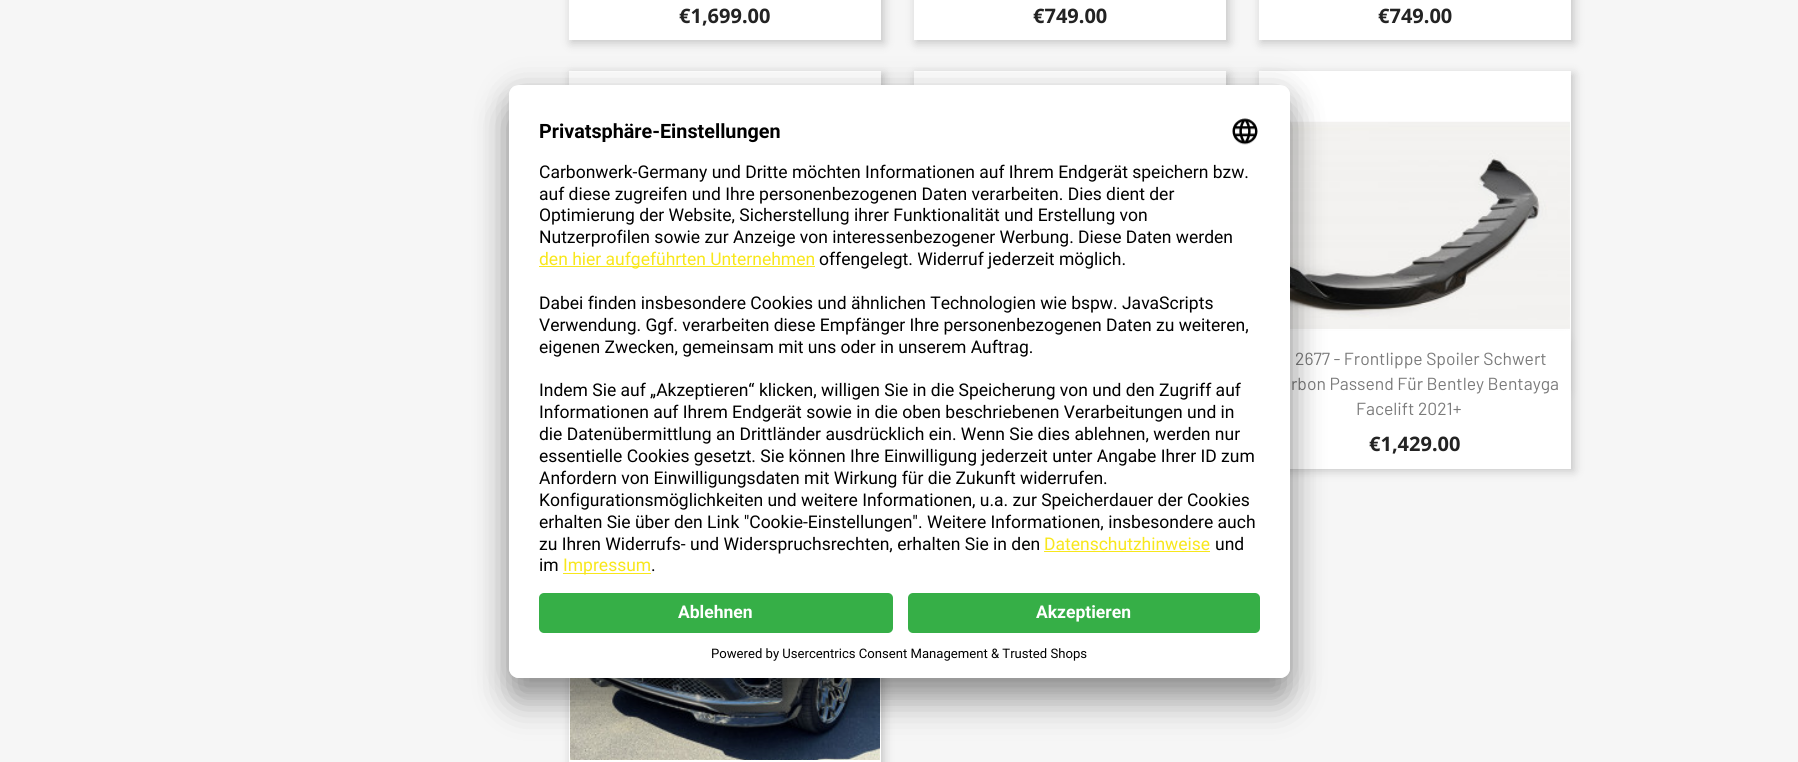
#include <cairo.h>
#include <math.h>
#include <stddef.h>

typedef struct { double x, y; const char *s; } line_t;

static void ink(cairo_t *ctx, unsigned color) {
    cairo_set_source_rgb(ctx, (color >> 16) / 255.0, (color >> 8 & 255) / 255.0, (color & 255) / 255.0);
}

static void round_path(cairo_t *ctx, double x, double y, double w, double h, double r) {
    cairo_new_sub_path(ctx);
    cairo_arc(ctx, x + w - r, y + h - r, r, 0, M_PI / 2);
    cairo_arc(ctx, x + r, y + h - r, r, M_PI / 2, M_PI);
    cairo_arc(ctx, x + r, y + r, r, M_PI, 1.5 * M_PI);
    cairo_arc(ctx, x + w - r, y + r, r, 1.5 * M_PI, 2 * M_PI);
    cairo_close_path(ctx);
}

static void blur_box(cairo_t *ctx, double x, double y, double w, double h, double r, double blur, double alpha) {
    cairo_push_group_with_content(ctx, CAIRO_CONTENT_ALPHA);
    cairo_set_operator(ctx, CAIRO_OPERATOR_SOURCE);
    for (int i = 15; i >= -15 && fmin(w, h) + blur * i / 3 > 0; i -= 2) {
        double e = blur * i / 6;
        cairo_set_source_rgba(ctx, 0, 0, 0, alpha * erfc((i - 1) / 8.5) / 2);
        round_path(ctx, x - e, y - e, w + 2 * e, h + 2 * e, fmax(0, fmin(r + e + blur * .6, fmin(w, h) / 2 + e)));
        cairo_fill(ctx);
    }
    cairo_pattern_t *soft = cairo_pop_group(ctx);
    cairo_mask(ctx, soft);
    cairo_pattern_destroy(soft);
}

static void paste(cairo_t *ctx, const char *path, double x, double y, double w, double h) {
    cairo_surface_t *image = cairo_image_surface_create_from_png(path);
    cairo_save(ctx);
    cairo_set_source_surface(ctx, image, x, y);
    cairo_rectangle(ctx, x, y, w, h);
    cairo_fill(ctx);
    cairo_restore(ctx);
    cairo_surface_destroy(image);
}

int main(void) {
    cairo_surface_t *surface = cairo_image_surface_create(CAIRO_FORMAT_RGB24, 1798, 762);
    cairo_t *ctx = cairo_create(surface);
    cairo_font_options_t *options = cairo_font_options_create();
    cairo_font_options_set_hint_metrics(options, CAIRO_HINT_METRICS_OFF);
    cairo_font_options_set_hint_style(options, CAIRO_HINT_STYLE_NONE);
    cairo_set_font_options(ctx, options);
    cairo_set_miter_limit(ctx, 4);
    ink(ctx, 0xF6F6F6);
    cairo_paint(ctx);
    ink(ctx, 0x000000);
    blur_box(ctx, 571, -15, 313, 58, 0, 5, 0.2);
    ink(ctx, 0xFFFFFF);
    cairo_rectangle(ctx, 569, 0, 312, 40);
    cairo_fill(ctx);
    cairo_select_font_face(ctx, "Noto Sans", CAIRO_FONT_SLANT_NORMAL, CAIRO_FONT_WEIGHT_BOLD);
    cairo_set_font_size(ctx, 20);
    ink(ctx, 0x232323);
    cairo_move_to(ctx, 679, 23);
    cairo_show_text(ctx, "€1,699.00");
    ink(ctx, 0x000000);
    blur_box(ctx, 916, -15, 313, 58, 0, 5, 0.2);
    ink(ctx, 0xFFFFFF);
    cairo_rectangle(ctx, 914, 0, 312, 40);
    cairo_fill(ctx);
    ink(ctx, 0x232323);
    cairo_move_to(ctx, 1033, 23);
    cairo_show_text(ctx, "€749.00");
    ink(ctx, 0x000000);
    blur_box(ctx, 1261, -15, 313, 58, 0, 5, 0.2);
    ink(ctx, 0xFFFFFF);
    cairo_rectangle(ctx, 1259, 0, 312, 40);
    cairo_fill(ctx);
    ink(ctx, 0x232323);
    cairo_move_to(ctx, 1378, 23);
    cairo_show_text(ctx, "€749.00");
    ink(ctx, 0x000000);
    blur_box(ctx, 571, 74, 313, 397, 0, 5, 0.2);
    ink(ctx, 0xFFFFFF);
    cairo_rectangle(ctx, 569, 71, 312, 14);
    cairo_fill(ctx);
    ink(ctx, 0x000000);
    blur_box(ctx, 916, 74, 313, 397, 0, 5, 0.2);
    ink(ctx, 0xFFFFFF);
    cairo_rectangle(ctx, 914, 71, 312, 14);
    cairo_fill(ctx);
    ink(ctx, 0x000000);
    blur_box(ctx, 1261, 74, 313, 397, 0, 5, 0.2);
    ink(ctx, 0xFFFFFF);
    cairo_rectangle(ctx, 1259, 71, 312, 260);
    cairo_fill(ctx);
    paste(ctx, "media/1.png", 1290, 121, 280, 208);
    ink(ctx, 0x000000);
    blur_box(ctx, 1265, 341, 300, 50, 0, 6, 0.2);
    ink(ctx, 0xFFFFFF);
    cairo_rectangle(ctx, 1290, 331, 281, 138);
    cairo_fill(ctx);
    cairo_select_font_face(ctx, "Barlow", CAIRO_FONT_SLANT_NORMAL, CAIRO_FONT_WEIGHT_NORMAL);
    cairo_set_font_size(ctx, 17.5);
    ink(ctx, 0x7A7A7A);
    {
        static const line_t items[] = {
            {1295, 365, "2677 - Frontlippe Spoiler Schwert"},
            {1291, 390, "rbon Passend Für Bentley Bentayga"},
            {1356, 415, "Facelift 2021+"},
        };
        for (size_t i = 0; i < sizeof items / sizeof *items; i++) {
            cairo_move_to(ctx, items[i].x, items[i].y);
            cairo_show_text(ctx, items[i].s);
        }
    }
    cairo_select_font_face(ctx, "Noto Sans", CAIRO_FONT_SLANT_NORMAL, CAIRO_FONT_WEIGHT_BOLD);
    cairo_set_font_size(ctx, 20);
    ink(ctx, 0x232323);
    cairo_move_to(ctx, 1369, 451);
    cairo_show_text(ctx, "€1,429.00");
    ink(ctx, 0x000000);
    blur_box(ctx, 571, 503, 313, 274, 0, 5, 0.2);
    ink(ctx, 0xFFFFFF);
    cairo_rectangle(ctx, 569, 678, 312, 84);
    cairo_fill(ctx);
    paste(ctx, "media/2.png", 570, 678, 310, 82);
    ink(ctx, 0x000000);
    blur_box(ctx, 509, 110, 781, 593, 10, 17.5, 0.3);
    blur_box(ctx, 509, 91, 781, 593, 10, 16, 0.22);
    ink(ctx, 0xFFFFFF);
    round_path(ctx, 509, 85, 781, 593, 10);
    cairo_fill(ctx);
    cairo_save(ctx);
    round_path(ctx, 509, 85, 781, 593, 10);
    cairo_clip(ctx);
    cairo_new_path(ctx);
    cairo_move_to(ctx, 519, 85);
    cairo_line_to(ctx, 1280, 85);
    cairo_curve_to(ctx, 1285.5, 85, 1290, 89.5, 1290, 95);
    cairo_line_to(ctx, 1290, 583);
    cairo_line_to(ctx, 509, 583);
    cairo_line_to(ctx, 509, 95);
    cairo_curve_to(ctx, 509, 89.5, 513.5, 85, 519, 85);
    cairo_close_path(ctx);
    cairo_clip(ctx);
    cairo_rectangle(ctx, 509, 86, 781, 497);
    cairo_fill(ctx);
    cairo_restore(ctx);
    cairo_select_font_face(ctx, "Roboto", CAIRO_FONT_SLANT_NORMAL, CAIRO_FONT_WEIGHT_BOLD);
    cairo_set_font_size(ctx, 19.75);
    ink(ctx, 0x000000);
    cairo_move_to(ctx, 539, 138);
    cairo_show_text(ctx, "Privatsphäre-Einstellungen");
    paste(ctx, "media/3.png", 1232, 118, 26, 27);
    cairo_select_font_face(ctx, "Roboto", CAIRO_FONT_SLANT_NORMAL, CAIRO_FONT_WEIGHT_NORMAL);
    cairo_set_font_size(ctx, 17.5);
    {
        static const line_t items[] = {
            {539, 178, "Carbonwerk-Germany und Dritte möchten Informationen auf Ihrem Endgerät speichern bzw."},
            {539, 200, "auf diese zugreifen und Ihre personenbezogenen Daten verarbeiten. Dies dient der"},
            {539, 221, "Optimierung der Website, Sicherstellung ihrer Funktionalität und Erstellung von"},
            {539, 243, "Nutzerprofilen sowie zur Anzeige von interessenbezogener Werbung. Diese Daten werden"},
        };
        for (size_t i = 0; i < sizeof items / sizeof *items; i++) {
            cairo_move_to(ctx, items[i].x, items[i].y);
            cairo_show_text(ctx, items[i].s);
        }
    }
    ink(ctx, 0xF8E71C);
    cairo_rectangle(ctx, 539, 266, 276, 1);
    cairo_fill(ctx);
    cairo_move_to(ctx, 539, 265);
    cairo_show_text(ctx, "den hier aufgeführten Unternehmen");
    ink(ctx, 0x000000);
    {
        static const line_t items[] = {
            {819, 265, "offengelegt. Widerruf jederzeit möglich."},
            {539, 309, "Dabei finden insbesondere Cookies und ähnlichen Technologien wie bspw. JavaScripts"},
            {539, 331, "Verwendung. Ggf. verarbeiten diese Empfänger Ihre personenbezogenen Daten zu weiteren,"},
            {539, 353, "eigenen Zwecken, gemeinsam mit uns oder in unserem Auftrag."},
            {539, 396, "Indem Sie auf „Akzeptieren“ klicken, willigen Sie in die Speicherung von und den Zugriff auf"},
            {539, 418, "Informationen auf Ihrem Endgerät sowie in die oben beschriebenen Verarbeitungen und in"},
            {539, 440, "die Datenübermittlung an Drittländer ausdrücklich ein. Wenn Sie dies ablehnen, werden nur"},
            {539, 462, "essentielle Cookies gesetzt. Sie können Ihre Einwilligung jederzeit unter Angabe Ihrer ID zum"},
            {539, 484, "Anfordern von Einwilligungsdaten mit Wirkung für die Zukunft widerrufen."},
            {539, 506, "Konfigurationsmöglichkeiten und weitere Informationen, u.a. zur Speicherdauer der Cookies"},
            {539, 528, "erhalten Sie über den Link \"Cookie-Einstellungen\". Weitere Informationen, insbesondere auch"},
            {539, 550, "zu Ihren Widerrufs- und Widerspruchsrechten, erhalten Sie in den"},
        };
        for (size_t i = 0; i < sizeof items / sizeof *items; i++) {
            cairo_move_to(ctx, items[i].x, items[i].y);
            cairo_show_text(ctx, items[i].s);
        }
    }
    ink(ctx, 0xF8E71C);
    cairo_move_to(ctx, 1044, 550);
    cairo_show_text(ctx, "Datenschutzhinweise");
    cairo_rectangle(ctx, 1044, 551, 166, 1);
    cairo_fill(ctx);
    ink(ctx, 0x000000);
    cairo_move_to(ctx, 1215, 550);
    cairo_show_text(ctx, "und");
    cairo_move_to(ctx, 539, 571);
    cairo_show_text(ctx, "im");
    ink(ctx, 0xF8E71C);
    cairo_rectangle(ctx, 563, 573, 88, 1);
    cairo_fill(ctx);
    cairo_move_to(ctx, 563, 571);
    cairo_show_text(ctx, "Impressum");
    ink(ctx, 0x000000);
    cairo_move_to(ctx, 651, 571);
    cairo_show_text(ctx, ".");
    ink(ctx, 0xFFFFFF);
    cairo_new_path(ctx);
    cairo_move_to(ctx, 509, 583);
    cairo_line_to(ctx, 1290, 583);
    cairo_line_to(ctx, 1290, 668);
    cairo_curve_to(ctx, 1290, 673.5, 1285.5, 678, 1280, 678);
    cairo_line_to(ctx, 519, 678);
    cairo_curve_to(ctx, 513.5, 678, 509, 673.5, 509, 668);
    cairo_close_path(ctx);
    cairo_fill(ctx);
    ink(ctx, 0x36AF47);
    round_path(ctx, 539, 593, 354, 40, 5);
    cairo_fill(ctx);
    cairo_select_font_face(ctx, "Roboto", CAIRO_FONT_SLANT_NORMAL, CAIRO_FONT_WEIGHT_BOLD);
    ink(ctx, 0xFFFFFF);
    cairo_move_to(ctx, 678, 618);
    cairo_show_text(ctx, "Ablehnen");
    ink(ctx, 0x36AF47);
    round_path(ctx, 908, 593, 352, 40, 5);
    cairo_fill(ctx);
    ink(ctx, 0xFFFFFF);
    cairo_move_to(ctx, 1036, 618);
    cairo_show_text(ctx, "Akzeptieren");
    cairo_select_font_face(ctx, "Roboto", CAIRO_FONT_SLANT_NORMAL, CAIRO_FONT_WEIGHT_NORMAL);
    cairo_set_font_size(ctx, 13.1);
    ink(ctx, 0x000000);
    cairo_move_to(ctx, 711, 658);
    cairo_show_text(ctx, "Powered by Usercentrics Consent Management & Trusted Shops");
    cairo_surface_write_to_png(surface, "image.png");
    cairo_font_options_destroy(options);
    cairo_destroy(ctx);
    cairo_surface_destroy(surface);
    return 0;
}
